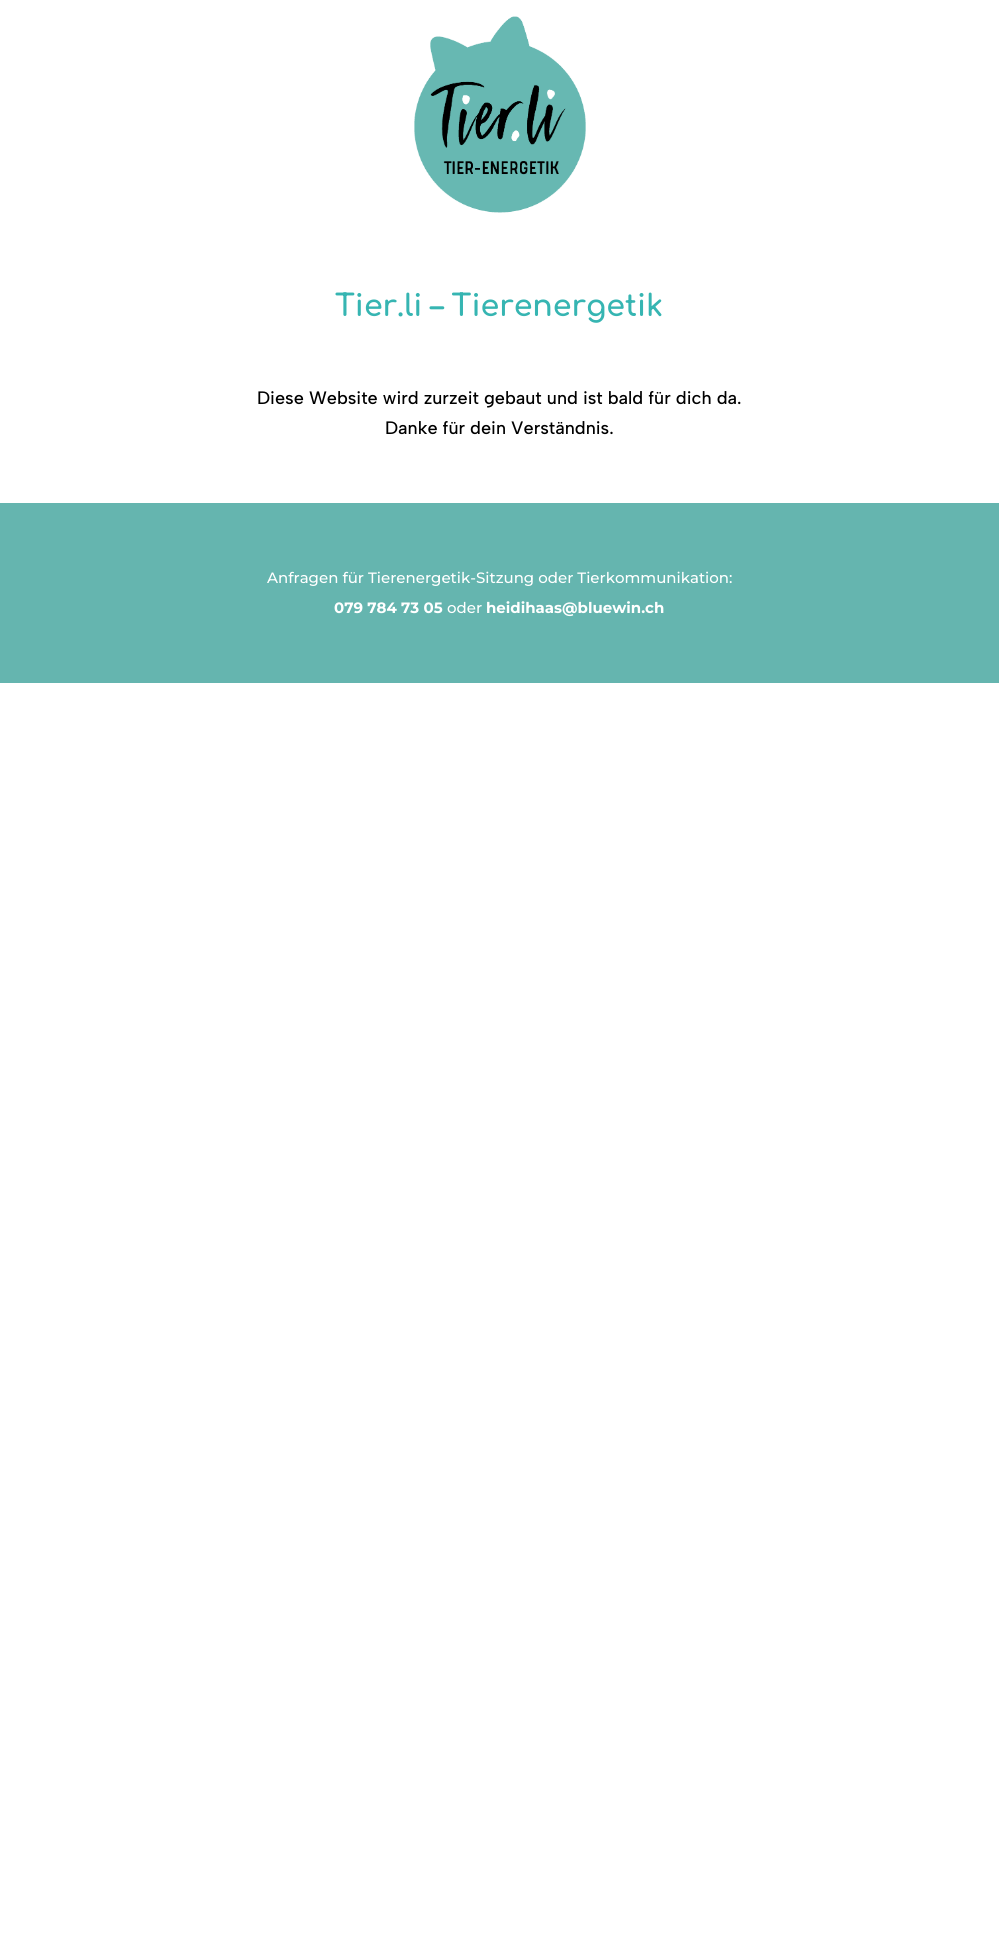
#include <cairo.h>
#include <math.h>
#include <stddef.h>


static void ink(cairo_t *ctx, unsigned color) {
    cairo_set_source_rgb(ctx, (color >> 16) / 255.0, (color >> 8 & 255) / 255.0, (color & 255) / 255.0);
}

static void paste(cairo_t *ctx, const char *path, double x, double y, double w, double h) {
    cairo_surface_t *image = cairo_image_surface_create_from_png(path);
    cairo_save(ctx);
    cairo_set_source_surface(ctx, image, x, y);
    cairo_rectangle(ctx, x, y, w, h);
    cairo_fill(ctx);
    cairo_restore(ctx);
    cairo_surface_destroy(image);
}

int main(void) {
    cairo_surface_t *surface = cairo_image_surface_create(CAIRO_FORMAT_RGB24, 999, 1953);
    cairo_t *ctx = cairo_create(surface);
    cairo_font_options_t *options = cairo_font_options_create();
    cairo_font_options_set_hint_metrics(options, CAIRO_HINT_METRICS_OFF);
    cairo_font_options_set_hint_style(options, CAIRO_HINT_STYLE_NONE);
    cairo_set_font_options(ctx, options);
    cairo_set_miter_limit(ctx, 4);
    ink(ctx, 0xFFFFFF);
    cairo_paint(ctx);
    paste(ctx, "media/1.png", 414, 16, 172, 197);
    cairo_select_font_face(ctx, "Comfortaa", CAIRO_FONT_SLANT_NORMAL, CAIRO_FONT_WEIGHT_BOLD);
    cairo_set_font_size(ctx, 30);
    ink(ctx, 0x36B5B2);
    cairo_move_to(ctx, 335, 316);
    cairo_show_text(ctx, "Tier.li – Tierenergetik");
    cairo_select_font_face(ctx, "Albert Sans Medium", CAIRO_FONT_SLANT_NORMAL, CAIRO_FONT_WEIGHT_NORMAL);
    cairo_set_font_size(ctx, 18);
    ink(ctx, 0x000000);
    cairo_move_to(ctx, 257, 404);
    cairo_show_text(ctx, "Diese Website wird zurzeit gebaut und ist bald für dich da.");
    cairo_move_to(ctx, 385, 434);
    cairo_show_text(ctx, "Danke für dein Verständnis.");
    ink(ctx, 0x65B5AF);
    cairo_rectangle(ctx, 0, 503, 999, 180);
    cairo_fill(ctx);
    cairo_select_font_face(ctx, "Montserrat Thin", CAIRO_FONT_SLANT_NORMAL, CAIRO_FONT_WEIGHT_NORMAL);
    cairo_set_font_size(ctx, 15);
    ink(ctx, 0xFFFFFF);
    cairo_move_to(ctx, 267, 583);
    cairo_show_text(ctx, "Anfragen für Tierenergetik-Sitzung oder Tierkommunikation:");
    cairo_select_font_face(ctx, "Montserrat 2 Thin", CAIRO_FONT_SLANT_NORMAL, CAIRO_FONT_WEIGHT_NORMAL);
    cairo_move_to(ctx, 334, 613);
    cairo_show_text(ctx, "079 784 73 05");
    cairo_select_font_face(ctx, "Montserrat Thin", CAIRO_FONT_SLANT_NORMAL, CAIRO_FONT_WEIGHT_NORMAL);
    cairo_move_to(ctx, 447, 613);
    cairo_show_text(ctx, "oder");
    cairo_select_font_face(ctx, "Montserrat 2 Thin", CAIRO_FONT_SLANT_NORMAL, CAIRO_FONT_WEIGHT_NORMAL);
    cairo_move_to(ctx, 486, 613);
    cairo_show_text(ctx, "heidihaas@bluewin.ch");
    cairo_surface_write_to_png(surface, "image.png");
    cairo_font_options_destroy(options);
    cairo_destroy(ctx);
    cairo_surface_destroy(surface);
    return 0;
}
